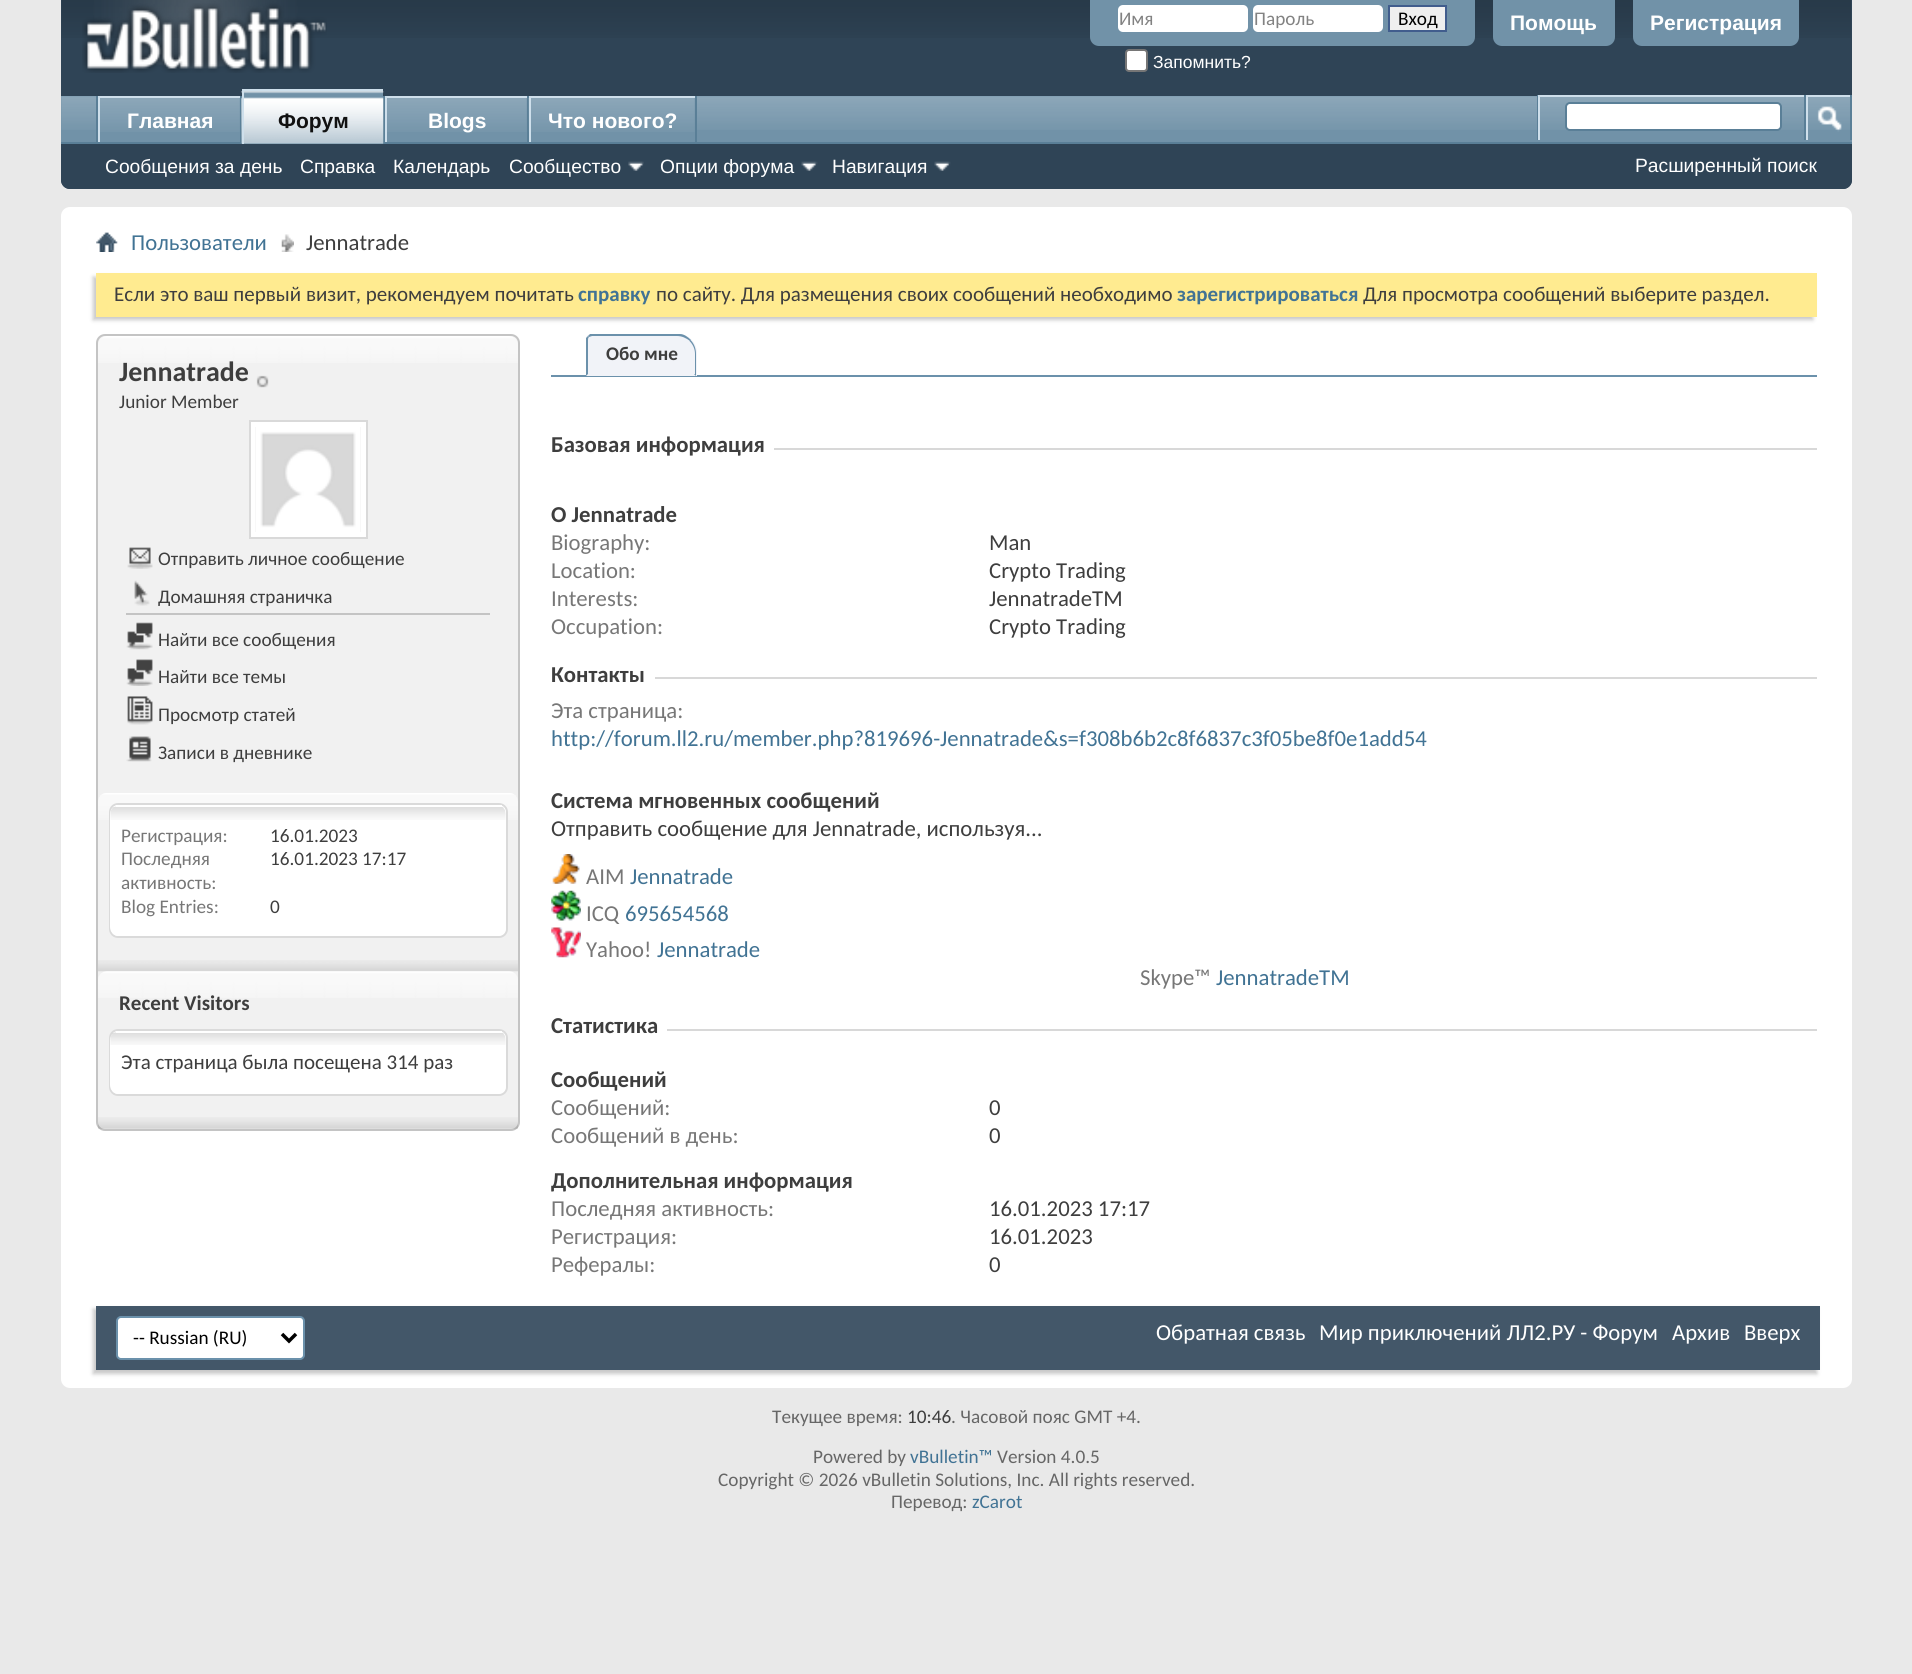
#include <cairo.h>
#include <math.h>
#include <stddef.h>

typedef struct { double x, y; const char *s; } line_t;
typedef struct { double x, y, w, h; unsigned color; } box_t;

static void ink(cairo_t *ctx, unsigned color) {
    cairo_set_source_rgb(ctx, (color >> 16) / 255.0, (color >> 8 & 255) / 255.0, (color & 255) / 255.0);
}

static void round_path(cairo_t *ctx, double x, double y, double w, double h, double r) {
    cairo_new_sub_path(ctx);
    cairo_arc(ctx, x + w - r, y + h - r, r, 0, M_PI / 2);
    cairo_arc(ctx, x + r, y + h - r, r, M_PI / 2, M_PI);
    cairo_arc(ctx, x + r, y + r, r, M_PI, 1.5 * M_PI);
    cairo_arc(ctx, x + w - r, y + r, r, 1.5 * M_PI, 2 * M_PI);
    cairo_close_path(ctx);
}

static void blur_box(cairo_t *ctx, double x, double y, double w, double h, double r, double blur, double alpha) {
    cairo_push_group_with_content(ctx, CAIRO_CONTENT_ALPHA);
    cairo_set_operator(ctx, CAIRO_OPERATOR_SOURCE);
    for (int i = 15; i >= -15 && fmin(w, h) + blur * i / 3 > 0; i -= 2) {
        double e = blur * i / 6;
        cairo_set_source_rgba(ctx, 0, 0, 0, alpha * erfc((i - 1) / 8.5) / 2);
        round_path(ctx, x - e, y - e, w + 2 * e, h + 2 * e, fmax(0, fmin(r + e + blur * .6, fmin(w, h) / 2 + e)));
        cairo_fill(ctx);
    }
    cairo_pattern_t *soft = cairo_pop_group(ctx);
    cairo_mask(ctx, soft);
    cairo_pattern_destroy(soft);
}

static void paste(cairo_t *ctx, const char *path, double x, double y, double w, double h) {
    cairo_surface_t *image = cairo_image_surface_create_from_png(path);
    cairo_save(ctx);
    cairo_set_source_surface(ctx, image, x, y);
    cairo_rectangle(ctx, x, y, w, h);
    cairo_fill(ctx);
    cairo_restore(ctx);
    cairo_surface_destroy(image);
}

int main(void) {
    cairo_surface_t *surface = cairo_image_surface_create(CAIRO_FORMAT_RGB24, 1912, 1674);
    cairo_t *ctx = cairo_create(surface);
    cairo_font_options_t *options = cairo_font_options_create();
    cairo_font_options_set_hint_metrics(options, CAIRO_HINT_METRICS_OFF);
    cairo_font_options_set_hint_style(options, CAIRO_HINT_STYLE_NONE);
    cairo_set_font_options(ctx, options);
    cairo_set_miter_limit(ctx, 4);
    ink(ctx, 0xE9E9E9);
    cairo_paint(ctx);
    ink(ctx, 0x2F4456);
    cairo_new_path(ctx);
    cairo_move_to(ctx, 61, 0);
    cairo_line_to(ctx, 1852, 0);
    cairo_line_to(ctx, 1852, 180);
    cairo_curve_to(ctx, 1852, 185, 1848, 189, 1843, 189);
    cairo_line_to(ctx, 70, 189);
    cairo_curve_to(ctx, 65, 189, 61, 185, 61, 180);
    cairo_close_path(ctx);
    cairo_fill(ctx);
    paste(ctx, "media/1.png", 61, 0, 1790, 38);
    paste(ctx, "media/2.png", 82, 0, 245, 73);
    ink(ctx, 0x7192A8);
    cairo_new_path(ctx);
    cairo_move_to(ctx, 1090, 0);
    cairo_line_to(ctx, 1475, 0);
    cairo_line_to(ctx, 1475, 37);
    cairo_curve_to(ctx, 1475, 42, 1471, 46, 1466, 46);
    cairo_line_to(ctx, 1099, 46);
    cairo_curve_to(ctx, 1094, 46, 1090, 42, 1090, 37);
    cairo_close_path(ctx);
    cairo_fill(ctx);
    ink(ctx, 0xFFFFFF);
    round_path(ctx, 1118, 5, 130, 27, 5);
    cairo_fill(ctx);
    cairo_select_font_face(ctx, "Carlito", CAIRO_FONT_SLANT_NORMAL, CAIRO_FONT_WEIGHT_NORMAL);
    cairo_set_font_size(ctx, 19.25);
    ink(ctx, 0x828282);
    cairo_move_to(ctx, 1119, 25);
    cairo_show_text(ctx, "Имя");
    ink(ctx, 0xFFFFFF);
    round_path(ctx, 1253, 5, 130, 27, 5);
    cairo_fill(ctx);
    ink(ctx, 0x828282);
    cairo_move_to(ctx, 1254, 25);
    cairo_show_text(ctx, "Пароль");
    ink(ctx, 0xEFEFEF);
    cairo_rectangle(ctx, 1389, 6, 57, 25);
    cairo_fill_preserve(ctx);
    ink(ctx, 0x415D8D);
    cairo_stroke(ctx);
    ink(ctx, 0x000000);
    cairo_move_to(ctx, 1398, 25);
    cairo_show_text(ctx, "Вход");
    ink(ctx, 0xFFFFFF);
    round_path(ctx, 1126, 50, 21, 21, 3);
    cairo_fill_preserve(ctx);
    ink(ctx, 0x767676);
    cairo_stroke(ctx);
    cairo_select_font_face(ctx, "Liberation Sans", CAIRO_FONT_SLANT_NORMAL, CAIRO_FONT_WEIGHT_NORMAL);
    cairo_set_font_size(ctx, 17.5);
    ink(ctx, 0xFFFFFF);
    cairo_move_to(ctx, 1153, 68);
    cairo_show_text(ctx, "Запомнить?");
    ink(ctx, 0x7192A8);
    cairo_new_path(ctx);
    cairo_move_to(ctx, 1493, 0);
    cairo_line_to(ctx, 1615, 0);
    cairo_line_to(ctx, 1615, 37);
    cairo_curve_to(ctx, 1615, 42, 1611, 46, 1606, 46);
    cairo_line_to(ctx, 1502, 46);
    cairo_curve_to(ctx, 1497, 46, 1493, 42, 1493, 37);
    cairo_close_path(ctx);
    cairo_fill(ctx);
    cairo_select_font_face(ctx, "Liberation Sans", CAIRO_FONT_SLANT_NORMAL, CAIRO_FONT_WEIGHT_BOLD);
    cairo_set_font_size(ctx, 21);
    ink(ctx, 0xFFFFFF);
    cairo_move_to(ctx, 1510, 30);
    cairo_show_text(ctx, "Помощь");
    ink(ctx, 0x7192A8);
    cairo_new_path(ctx);
    cairo_move_to(ctx, 1633, 0);
    cairo_line_to(ctx, 1799, 0);
    cairo_line_to(ctx, 1799, 37);
    cairo_curve_to(ctx, 1799, 42, 1795, 46, 1790, 46);
    cairo_line_to(ctx, 1642, 46);
    cairo_curve_to(ctx, 1637, 46, 1633, 42, 1633, 37);
    cairo_close_path(ctx);
    cairo_fill(ctx);
    ink(ctx, 0xFFFFFF);
    cairo_move_to(ctx, 1650, 30);
    cairo_show_text(ctx, "Регистрация");
    ink(ctx, 0x2F4456);
    cairo_new_path(ctx);
    cairo_move_to(ctx, 61, 96);
    cairo_line_to(ctx, 1852, 96);
    cairo_line_to(ctx, 1852, 180);
    cairo_curve_to(ctx, 1852, 185, 1848, 189, 1843, 189);
    cairo_line_to(ctx, 70, 189);
    cairo_curve_to(ctx, 65, 189, 61, 185, 61, 180);
    cairo_close_path(ctx);
    cairo_fill(ctx);
    ink(ctx, 0x7192A8);
    cairo_rectangle(ctx, 61, 96, 1791, 46);
    cairo_fill(ctx);
    paste(ctx, "media/3.png", 61, 96, 1789, 34);
    ink(ctx, 0x5A7F97);
    cairo_rectangle(ctx, 527, 96, 2, 48);
    cairo_fill(ctx);
    ink(ctx, 0x7192A8);
    cairo_rectangle(ctx, 387, 98, 140, 32);
    cairo_fill(ctx);
    paste(ctx, "media/4.png", 387, 98, 140, 34);
    ink(ctx, 0xCEDFEB);
    cairo_rectangle(ctx, 385, 96, 142, 2);
    cairo_fill(ctx);
    cairo_rectangle(ctx, 385, 96, 2, 48);
    cairo_fill(ctx);
    ink(ctx, 0xFFFFFF);
    cairo_move_to(ctx, 428, 128);
    cairo_show_text(ctx, "Blogs");
    {
        static const box_t items[] = {
            {383, 96, 2, 46, 0x5A7F97},
            {240, 96, 2, 48, 0x5A7F97},
            {96, 96, 2, 48, 0x5A7F97},
            {98, 96, 142, 2, 0xCEDFEB},
            {98, 96, 2, 48, 0xCEDFEB},
            {695, 96, 2, 48, 0x5A7F97},
            {531, 98, 164, 32, 0x7192A8},
        };
        for (size_t i = 0; i < sizeof items / sizeof *items; i++) {
            ink(ctx, items[i].color);
            cairo_rectangle(ctx, items[i].x, items[i].y, items[i].w, items[i].h);
            cairo_fill(ctx);
        }
    }
    paste(ctx, "media/9.png", 528, 98, 167, 34);
    {
        static const box_t items[] = {
            {529, 96, 166, 2, 0xCEDFEB},
            {529, 96, 2, 48, 0xCEDFEB},
            {61, 142, 1791, 2, 0x5A7F97},
            {244, 91, 139, 53, 0x7192A8},
        };
        for (size_t i = 0; i < sizeof items / sizeof *items; i++) {
            ink(ctx, items[i].color);
            cairo_rectangle(ctx, items[i].x, items[i].y, items[i].w, items[i].h);
            cairo_fill(ctx);
        }
    }
    paste(ctx, "media/5.png", 241, 91, 143, 53);
    ink(ctx, 0xCEDFEB);
    cairo_rectangle(ctx, 242, 89, 141, 2);
    cairo_fill(ctx);
    cairo_rectangle(ctx, 242, 89, 2, 55);
    cairo_fill(ctx);
    ink(ctx, 0x111111);
    cairo_move_to(ctx, 278, 128);
    cairo_show_text(ctx, "Форум");
    cairo_select_font_face(ctx, "Liberation Sans", CAIRO_FONT_SLANT_NORMAL, CAIRO_FONT_WEIGHT_NORMAL);
    cairo_set_font_size(ctx, 19.25);
    ink(ctx, 0xFFFFFF);
    {
        static const line_t items[] = {
            {105, 173, "Сообщения за день"},
            {300, 173, "Справка"},
            {393, 173, "Календарь"},
            {509, 173, "Сообщество"},
        };
        for (size_t i = 0; i < sizeof items / sizeof *items; i++) {
            cairo_move_to(ctx, items[i].x, items[i].y);
            cairo_show_text(ctx, items[i].s);
        }
    }
    paste(ctx, "media/6.png", 628, 161, 16, 10);
    cairo_move_to(ctx, 660, 173);
    cairo_show_text(ctx, "Опции форума");
    paste(ctx, "media/7.png", 801, 161, 17, 10);
    cairo_move_to(ctx, 832, 173);
    cairo_show_text(ctx, "Навигация");
    paste(ctx, "media/8.png", 934, 161, 17, 10);
    ink(ctx, 0x7192A8);
    cairo_rectangle(ctx, 100, 98, 140, 32);
    cairo_fill(ctx);
    paste(ctx, "media/4.png", 100, 98, 140, 34);
    cairo_select_font_face(ctx, "Liberation Sans", CAIRO_FONT_SLANT_NORMAL, CAIRO_FONT_WEIGHT_BOLD);
    cairo_set_font_size(ctx, 21);
    ink(ctx, 0xFFFFFF);
    cairo_move_to(ctx, 127, 128);
    cairo_show_text(ctx, "Главная");
    cairo_move_to(ctx, 548, 128);
    cairo_show_text(ctx, "Что нового?");
    {
        static const box_t items[] = {
            {1537, 95, 1, 45, 0x5A7F97},
            {1538, 95, 266, 2, 0xCEDFEB},
            {1538, 95, 2, 45, 0xCEDFEB},
        };
        for (size_t i = 0; i < sizeof items / sizeof *items; i++) {
            ink(ctx, items[i].color);
            cairo_rectangle(ctx, items[i].x, items[i].y, items[i].w, items[i].h);
            cairo_fill(ctx);
        }
    }
    ink(ctx, 0xFFFFFF);
    round_path(ctx, 1566, 103, 215, 27, 4);
    cairo_fill_preserve(ctx);
    ink(ctx, 0x5A7F97);
    cairo_stroke(ctx);
    {
        static const box_t items[] = {
            {1850, 95, 2, 45, 0x5A7F97},
            {1804, 95, 2, 45, 0x5A7F97},
            {1806, 95, 44, 2, 0xCEDFEB},
            {1806, 95, 2, 45, 0xCEDFEB},
        };
        for (size_t i = 0; i < sizeof items / sizeof *items; i++) {
            ink(ctx, items[i].color);
            cairo_rectangle(ctx, items[i].x, items[i].y, items[i].w, items[i].h);
            cairo_fill(ctx);
        }
    }
    paste(ctx, "media/10.png", 1817, 106, 25, 26);
    cairo_select_font_face(ctx, "Liberation Sans", CAIRO_FONT_SLANT_NORMAL, CAIRO_FONT_WEIGHT_NORMAL);
    cairo_set_font_size(ctx, 19.25);
    ink(ctx, 0xFFFFFF);
    cairo_move_to(ctx, 1635, 172);
    cairo_show_text(ctx, "Расширенный поиск");
    round_path(ctx, 61, 207, 1791, 1181, 9);
    cairo_fill(ctx);
    paste(ctx, "media/11.png", 96, 232, 22, 20);
    paste(ctx, "media/12.png", 281, 234, 13, 18);
    cairo_select_font_face(ctx, "Carlito", CAIRO_FONT_SLANT_NORMAL, CAIRO_FONT_WEIGHT_NORMAL);
    cairo_set_font_size(ctx, 22.75);
    ink(ctx, 0x417394);
    cairo_move_to(ctx, 131, 250);
    cairo_show_text(ctx, "Пользователи");
    ink(ctx, 0x3E3E3E);
    cairo_move_to(ctx, 306, 250);
    cairo_show_text(ctx, "Jennatrade");
    ink(ctx, 0xC8C8C8);
    blur_box(ctx, 93, 277, 1720, 43, 0, 2, 1);
    ink(ctx, 0xFFEB90);
    cairo_rectangle(ctx, 96, 273, 1721, 44);
    cairo_fill(ctx);
    cairo_set_font_size(ctx, 21);
    ink(ctx, 0x3E3E3E);
    cairo_move_to(ctx, 114, 301);
    cairo_show_text(ctx, "Если это ваш первый визит, рекомендуем почитать");
    cairo_select_font_face(ctx, "Carlito", CAIRO_FONT_SLANT_NORMAL, CAIRO_FONT_WEIGHT_BOLD);
    ink(ctx, 0x417394);
    cairo_move_to(ctx, 578, 301);
    cairo_show_text(ctx, "справку");
    cairo_select_font_face(ctx, "Carlito", CAIRO_FONT_SLANT_NORMAL, CAIRO_FONT_WEIGHT_NORMAL);
    ink(ctx, 0x3E3E3E);
    cairo_move_to(ctx, 656, 301);
    cairo_show_text(ctx, "по сайту. Для размещения своих сообщений необходимо");
    cairo_select_font_face(ctx, "Carlito", CAIRO_FONT_SLANT_NORMAL, CAIRO_FONT_WEIGHT_BOLD);
    ink(ctx, 0x417394);
    cairo_move_to(ctx, 1177, 301);
    cairo_show_text(ctx, "зарегистрироваться");
    cairo_select_font_face(ctx, "Carlito", CAIRO_FONT_SLANT_NORMAL, CAIRO_FONT_WEIGHT_NORMAL);
    ink(ctx, 0x3E3E3E);
    cairo_move_to(ctx, 1363, 301);
    cairo_show_text(ctx, "Для просмотра сообщений выберите раздел.");
    ink(ctx, 0xF1F1F1);
    round_path(ctx, 97, 335, 422, 795, 8);
    cairo_fill_preserve(ctx);
    ink(ctx, 0xC4C4C4);
    cairo_stroke(ctx);
    paste(ctx, "media/13.png", 98, 336, 420, 27);
    cairo_select_font_face(ctx, "Carlito", CAIRO_FONT_SLANT_NORMAL, CAIRO_FONT_WEIGHT_BOLD);
    cairo_set_font_size(ctx, 28);
    ink(ctx, 0x3E3E3E);
    cairo_move_to(ctx, 119, 381);
    cairo_show_text(ctx, "Jennatrade");
    paste(ctx, "media/14.png", 256, 375, 13, 13);
    cairo_select_font_face(ctx, "Carlito", CAIRO_FONT_SLANT_NORMAL, CAIRO_FONT_WEIGHT_NORMAL);
    cairo_set_font_size(ctx, 19.25);
    cairo_move_to(ctx, 119, 408);
    cairo_show_text(ctx, "Junior Member");
    cairo_rectangle(ctx, 252.5, 424.5, 111, 110);
    ink(ctx, 0xFFFFFF);
    cairo_set_line_width(ctx, 5);
    cairo_stroke(ctx);
    paste(ctx, "media/15.png", 255, 427, 106, 105);
    cairo_rectangle(ctx, 250, 421, 117, 117);
    ink(ctx, 0xD9D9D9);
    cairo_set_line_width(ctx, 2);
    cairo_stroke(ctx);
    paste(ctx, "media/16.png", 127, 547, 26, 22);
    ink(ctx, 0x3E3E3E);
    cairo_move_to(ctx, 158, 565);
    cairo_show_text(ctx, "Отправить личное сообщение");
    paste(ctx, "media/17.png", 134, 580, 16, 26);
    cairo_move_to(ctx, 158, 603);
    cairo_show_text(ctx, "Домашняя страничка");
    ink(ctx, 0xC4C4C4);
    cairo_rectangle(ctx, 126, 613, 364, 2);
    cairo_fill(ctx);
    paste(ctx, "media/18.png", 126, 622, 27, 28);
    ink(ctx, 0x3E3E3E);
    cairo_move_to(ctx, 158, 646);
    cairo_show_text(ctx, "Найти все сообщения");
    paste(ctx, "media/19.png", 126, 659, 27, 27);
    cairo_move_to(ctx, 158, 683);
    cairo_show_text(ctx, "Найти все темы");
    paste(ctx, "media/20.png", 127, 696, 26, 29);
    cairo_move_to(ctx, 158, 721);
    cairo_show_text(ctx, "Просмотр статей");
    paste(ctx, "media/21.png", 126, 736, 26, 26);
    cairo_move_to(ctx, 158, 759);
    cairo_show_text(ctx, "Записи в дневнике");
    paste(ctx, "media/22.png", 98, 793, 420, 27);
    ink(ctx, 0xFFFFFF);
    round_path(ctx, 110, 804, 397, 133, 8);
    cairo_fill_preserve(ctx);
    ink(ctx, 0xDADADA);
    cairo_stroke(ctx);
    ink(ctx, 0xFFFFFF);
    round_path(ctx, 110, 805, 396, 131, 9);
    cairo_fill(ctx);
    paste(ctx, "media/23.png", 110, 806, 396, 14);
    cairo_rectangle(ctx, 116, 805, 386, 2);
    cairo_fill(ctx);
    ink(ctx, 0x777777);
    cairo_move_to(ctx, 121, 842);
    cairo_show_text(ctx, "Регистрация:");
    ink(ctx, 0x3E3E3E);
    cairo_move_to(ctx, 270, 842);
    cairo_show_text(ctx, "16.01.2023");
    ink(ctx, 0x777777);
    cairo_move_to(ctx, 121, 865);
    cairo_show_text(ctx, "Последняя");
    cairo_move_to(ctx, 121, 889);
    cairo_show_text(ctx, "активность:");
    ink(ctx, 0x3E3E3E);
    cairo_move_to(ctx, 270, 865);
    cairo_show_text(ctx, "16.01.2023");
    cairo_move_to(ctx, 362, 865);
    cairo_show_text(ctx, "17:17");
    ink(ctx, 0x777777);
    cairo_move_to(ctx, 121, 913);
    cairo_show_text(ctx, "Blog Entries:");
    ink(ctx, 0x3E3E3E);
    cairo_move_to(ctx, 270, 913);
    cairo_show_text(ctx, "0");
    paste(ctx, "media/24.png", 98, 960, 420, 12);
    ink(ctx, 0xF1F1F1);
    cairo_new_path(ctx);
    cairo_move_to(ctx, 107, 971);
    cairo_line_to(ctx, 509, 971);
    cairo_curve_to(ctx, 514, 971, 518, 975, 518, 980);
    cairo_line_to(ctx, 518, 1106);
    cairo_line_to(ctx, 98, 1106);
    cairo_line_to(ctx, 98, 980);
    cairo_curve_to(ctx, 98, 975, 102, 971, 107, 971);
    cairo_close_path(ctx);
    cairo_fill(ctx);
    paste(ctx, "media/25.png", 98, 971, 420, 27);
    cairo_select_font_face(ctx, "Carlito", CAIRO_FONT_SLANT_NORMAL, CAIRO_FONT_WEIGHT_BOLD);
    cairo_set_font_size(ctx, 21);
    ink(ctx, 0x3E3E3E);
    cairo_move_to(ctx, 119, 1010);
    cairo_show_text(ctx, "Recent Visitors");
    ink(ctx, 0xFFFFFF);
    round_path(ctx, 110, 1030, 397, 65, 8);
    cairo_fill_preserve(ctx);
    ink(ctx, 0xDADADA);
    cairo_stroke(ctx);
    ink(ctx, 0xFFFFFF);
    round_path(ctx, 110, 1031, 396, 63, 9);
    cairo_fill(ctx);
    paste(ctx, "media/26.png", 110, 1032, 396, 13);
    cairo_rectangle(ctx, 116, 1031, 386, 2);
    cairo_fill(ctx);
    cairo_select_font_face(ctx, "Carlito", CAIRO_FONT_SLANT_NORMAL, CAIRO_FONT_WEIGHT_NORMAL);
    ink(ctx, 0x3E3E3E);
    cairo_move_to(ctx, 121, 1069);
    cairo_show_text(ctx, "Эта страница была посещена 314 раз");
    paste(ctx, "media/27.png", 98, 1117, 420, 12);
    ink(ctx, 0x6B91AB);
    cairo_rectangle(ctx, 551, 375, 1266, 2);
    cairo_fill(ctx);
    ink(ctx, 0xF1F3F8);
    cairo_new_path(ctx);
    cairo_move_to(ctx, 591, 334);
    cairo_line_to(ctx, 678, 334);
    cairo_curve_to(ctx, 688.5, 334, 697, 342.5, 697, 353);
    cairo_line_to(ctx, 697, 376);
    cairo_line_to(ctx, 586, 376);
    cairo_line_to(ctx, 586, 339);
    cairo_curve_to(ctx, 586, 336, 588, 334, 591, 334);
    cairo_close_path(ctx);
    cairo_fill(ctx);
    ink(ctx, 0x6B91AB);
    cairo_new_path(ctx);
    cairo_move_to(ctx, 592, 336);
    cairo_line_to(ctx, 589, 337);
    cairo_line_to(ctx, 588, 336);
    cairo_line_to(ctx, 590, 334);
    cairo_line_to(ctx, 680, 334);
    cairo_curve_to(ctx, 684, 334, 688, 337, 691, 340);
    cairo_line_to(ctx, 690, 341);
    cairo_curve_to(ctx, 686, 338, 682, 336, 677, 336);
    cairo_close_path(ctx);
    cairo_fill(ctx);
    cairo_new_path(ctx);
    cairo_move_to(ctx, 690.5, 340);
    cairo_curve_to(ctx, 694, 343.5, 696, 348.5, 696, 354);
    cairo_line_to(ctx, 696, 376);
    cairo_line_to(ctx, 694, 374);
    cairo_line_to(ctx, 695, 374);
    cairo_line_to(ctx, 695, 354);
    cairo_curve_to(ctx, 695, 349, 693, 344.5, 689.5, 341);
    cairo_close_path(ctx);
    cairo_fill(ctx);
    cairo_new_path(ctx);
    cairo_move_to(ctx, 586, 338);
    cairo_line_to(ctx, 588, 336);
    cairo_line_to(ctx, 589, 337);
    cairo_curve_to(ctx, 588, 338, 588, 339, 588, 340);
    cairo_line_to(ctx, 588, 374);
    cairo_line_to(ctx, 586, 376);
    cairo_close_path(ctx);
    cairo_fill(ctx);
    cairo_select_font_face(ctx, "Carlito", CAIRO_FONT_SLANT_NORMAL, CAIRO_FONT_WEIGHT_BOLD);
    cairo_set_font_size(ctx, 19.25);
    ink(ctx, 0x3E3E3E);
    cairo_move_to(ctx, 606, 360);
    cairo_show_text(ctx, "Обо мне");
    cairo_set_font_size(ctx, 22.75);
    cairo_move_to(ctx, 551, 452);
    cairo_show_text(ctx, "Базовая информация");
    ink(ctx, 0xD8D8D8);
    cairo_rectangle(ctx, 774, 448, 1043, 2);
    cairo_fill(ctx);
    ink(ctx, 0x3E3E3E);
    cairo_move_to(ctx, 551, 522);
    cairo_show_text(ctx, "О Jennatrade");
    cairo_select_font_face(ctx, "Carlito", CAIRO_FONT_SLANT_NORMAL, CAIRO_FONT_WEIGHT_NORMAL);
    ink(ctx, 0x777777);
    cairo_move_to(ctx, 551, 550);
    cairo_show_text(ctx, "Biography:");
    ink(ctx, 0x3E3E3E);
    cairo_move_to(ctx, 989, 550);
    cairo_show_text(ctx, "Man");
    ink(ctx, 0x777777);
    cairo_move_to(ctx, 551, 578);
    cairo_show_text(ctx, "Location:");
    ink(ctx, 0x3E3E3E);
    cairo_move_to(ctx, 989, 578);
    cairo_show_text(ctx, "Crypto Trading");
    ink(ctx, 0x777777);
    cairo_move_to(ctx, 551, 606);
    cairo_show_text(ctx, "Interests:");
    ink(ctx, 0x3E3E3E);
    cairo_move_to(ctx, 989, 606);
    cairo_show_text(ctx, "JennatradeTM");
    ink(ctx, 0x777777);
    cairo_move_to(ctx, 551, 634);
    cairo_show_text(ctx, "Occupation:");
    ink(ctx, 0x3E3E3E);
    cairo_move_to(ctx, 989, 634);
    cairo_show_text(ctx, "Crypto Trading");
    cairo_select_font_face(ctx, "Carlito", CAIRO_FONT_SLANT_NORMAL, CAIRO_FONT_WEIGHT_BOLD);
    cairo_move_to(ctx, 551, 682);
    cairo_show_text(ctx, "Контакты");
    ink(ctx, 0xD8D8D8);
    cairo_rectangle(ctx, 655, 677, 1162, 2);
    cairo_fill(ctx);
    cairo_select_font_face(ctx, "Carlito", CAIRO_FONT_SLANT_NORMAL, CAIRO_FONT_WEIGHT_NORMAL);
    ink(ctx, 0x777777);
    cairo_move_to(ctx, 551, 718);
    cairo_show_text(ctx, "Эта страница:");
    ink(ctx, 0x417394);
    cairo_move_to(ctx, 551, 746);
    cairo_show_text(ctx, "http://forum.ll2.ru/member.php?819696-Jennatrade&s=f308b6b2c8f6837c3f05be8f0e1add54");
    cairo_select_font_face(ctx, "Carlito", CAIRO_FONT_SLANT_NORMAL, CAIRO_FONT_WEIGHT_BOLD);
    ink(ctx, 0x3E3E3E);
    cairo_move_to(ctx, 551, 808);
    cairo_show_text(ctx, "Система мгновенных сообщений");
    cairo_select_font_face(ctx, "Carlito", CAIRO_FONT_SLANT_NORMAL, CAIRO_FONT_WEIGHT_NORMAL);
    cairo_move_to(ctx, 551, 836);
    cairo_show_text(ctx, "Отправить сообщение для Jennatrade, используя...");
    paste(ctx, "media/28.png", 552, 854, 28, 30);
    ink(ctx, 0x777777);
    cairo_move_to(ctx, 586, 884);
    cairo_show_text(ctx, "AIM");
    ink(ctx, 0x417394);
    cairo_move_to(ctx, 630, 884);
    cairo_show_text(ctx, "Jennatrade");
    paste(ctx, "media/29.png", 551, 890, 30, 31);
    ink(ctx, 0x777777);
    cairo_move_to(ctx, 586, 921);
    cairo_show_text(ctx, "ICQ");
    ink(ctx, 0x417394);
    cairo_move_to(ctx, 625, 921);
    cairo_show_text(ctx, "695654568");
    paste(ctx, "media/30.png", 551, 927, 30, 31);
    ink(ctx, 0x777777);
    cairo_move_to(ctx, 586, 957);
    cairo_show_text(ctx, "Yahoo!");
    ink(ctx, 0x417394);
    cairo_move_to(ctx, 657, 957);
    cairo_show_text(ctx, "Jennatrade");
    ink(ctx, 0x777777);
    cairo_move_to(ctx, 1140, 985);
    cairo_show_text(ctx, "Skype™");
    ink(ctx, 0x417394);
    cairo_move_to(ctx, 1216, 985);
    cairo_show_text(ctx, "JennatradeTM");
    cairo_select_font_face(ctx, "Carlito", CAIRO_FONT_SLANT_NORMAL, CAIRO_FONT_WEIGHT_BOLD);
    ink(ctx, 0x3E3E3E);
    cairo_move_to(ctx, 551, 1033);
    cairo_show_text(ctx, "Статистика");
    ink(ctx, 0xD8D8D8);
    cairo_rectangle(ctx, 667, 1029, 1150, 2);
    cairo_fill(ctx);
    ink(ctx, 0x3E3E3E);
    cairo_move_to(ctx, 551, 1087);
    cairo_show_text(ctx, "Сообщений");
    cairo_select_font_face(ctx, "Carlito", CAIRO_FONT_SLANT_NORMAL, CAIRO_FONT_WEIGHT_NORMAL);
    ink(ctx, 0x777777);
    cairo_move_to(ctx, 551, 1115);
    cairo_show_text(ctx, "Сообщений:");
    ink(ctx, 0x3E3E3E);
    cairo_move_to(ctx, 989, 1115);
    cairo_show_text(ctx, "0");
    ink(ctx, 0x777777);
    cairo_move_to(ctx, 551, 1143);
    cairo_show_text(ctx, "Сообщений в день:");
    ink(ctx, 0x3E3E3E);
    cairo_move_to(ctx, 989, 1143);
    cairo_show_text(ctx, "0");
    cairo_select_font_face(ctx, "Carlito", CAIRO_FONT_SLANT_NORMAL, CAIRO_FONT_WEIGHT_BOLD);
    cairo_move_to(ctx, 551, 1188);
    cairo_show_text(ctx, "Дополнительная информация");
    cairo_select_font_face(ctx, "Carlito", CAIRO_FONT_SLANT_NORMAL, CAIRO_FONT_WEIGHT_NORMAL);
    ink(ctx, 0x777777);
    cairo_move_to(ctx, 551, 1216);
    cairo_show_text(ctx, "Последняя активность:");
    ink(ctx, 0x3E3E3E);
    cairo_move_to(ctx, 989, 1216);
    cairo_show_text(ctx, "16.01.2023 17:17");
    ink(ctx, 0x777777);
    cairo_move_to(ctx, 551, 1244);
    cairo_show_text(ctx, "Регистрация:");
    ink(ctx, 0x3E3E3E);
    cairo_move_to(ctx, 989, 1244);
    cairo_show_text(ctx, "16.01.2023");
    ink(ctx, 0x777777);
    cairo_move_to(ctx, 551, 1272);
    cairo_show_text(ctx, "Рефералы:");
    ink(ctx, 0x3E3E3E);
    cairo_move_to(ctx, 989, 1272);
    cairo_show_text(ctx, "0");
    ink(ctx, 0xC8C8C8);
    blur_box(ctx, 93, 1309, 1724, 65, 0, 2, 1);
    ink(ctx, 0x435769);
    cairo_rectangle(ctx, 96, 1306, 1724, 64);
    cairo_fill(ctx);
    ink(ctx, 0xFFFFFF);
    round_path(ctx, 117, 1317, 187, 42, 4);
    cairo_fill_preserve(ctx);
    ink(ctx, 0x6B91AB);
    cairo_stroke(ctx);
    cairo_new_path(ctx);
    cairo_move_to(ctx, 282, 1334);
    cairo_line_to(ctx, 289, 1341);
    cairo_line_to(ctx, 296, 1334);
    ink(ctx, 0x000000);
    cairo_set_line_width(ctx, 3.5);
    cairo_stroke(ctx);
    cairo_set_font_size(ctx, 19.25);
    cairo_move_to(ctx, 133, 1344);
    cairo_show_text(ctx, "-- Russian (RU)");
    cairo_set_font_size(ctx, 22.75);
    ink(ctx, 0xFFFFFF);
    {
        static const line_t items[] = {
            {1156, 1340, "Обратная связь"},
            {1319, 1340, "Мир приключений ЛЛ2.РУ - Форум"},
            {1672, 1340, "Архив"},
            {1744, 1340, "Вверх"},
        };
        for (size_t i = 0; i < sizeof items / sizeof *items; i++) {
            cairo_move_to(ctx, items[i].x, items[i].y);
            cairo_show_text(ctx, items[i].s);
        }
    }
    cairo_set_font_size(ctx, 19.25);
    ink(ctx, 0x666666);
    cairo_move_to(ctx, 772, 1423);
    cairo_show_text(ctx, "Текущее время:");
    ink(ctx, 0x3E3E3E);
    cairo_move_to(ctx, 907, 1423);
    cairo_show_text(ctx, "10:46");
    ink(ctx, 0x666666);
    cairo_move_to(ctx, 951, 1423);
    cairo_show_text(ctx, ". Часовой пояс GMT +4.");
    cairo_move_to(ctx, 813, 1463);
    cairo_show_text(ctx, "Powered by");
    ink(ctx, 0x417394);
    cairo_move_to(ctx, 910, 1463);
    cairo_show_text(ctx, "vBulletin™");
    ink(ctx, 0x666666);
    {
        static const line_t items[] = {
            {997, 1463, "Version 4.0.5"},
            {718, 1486, "Copyright © 2026 vBulletin Solutions, Inc. All rights reserved."},
            {891, 1508, "Перевод:"},
        };
        for (size_t i = 0; i < sizeof items / sizeof *items; i++) {
            cairo_move_to(ctx, items[i].x, items[i].y);
            cairo_show_text(ctx, items[i].s);
        }
    }
    ink(ctx, 0x417394);
    cairo_move_to(ctx, 972, 1508);
    cairo_show_text(ctx, "zCarot");
    cairo_surface_write_to_png(surface, "image.png");
    cairo_font_options_destroy(options);
    cairo_destroy(ctx);
    cairo_surface_destroy(surface);
    return 0;
}
